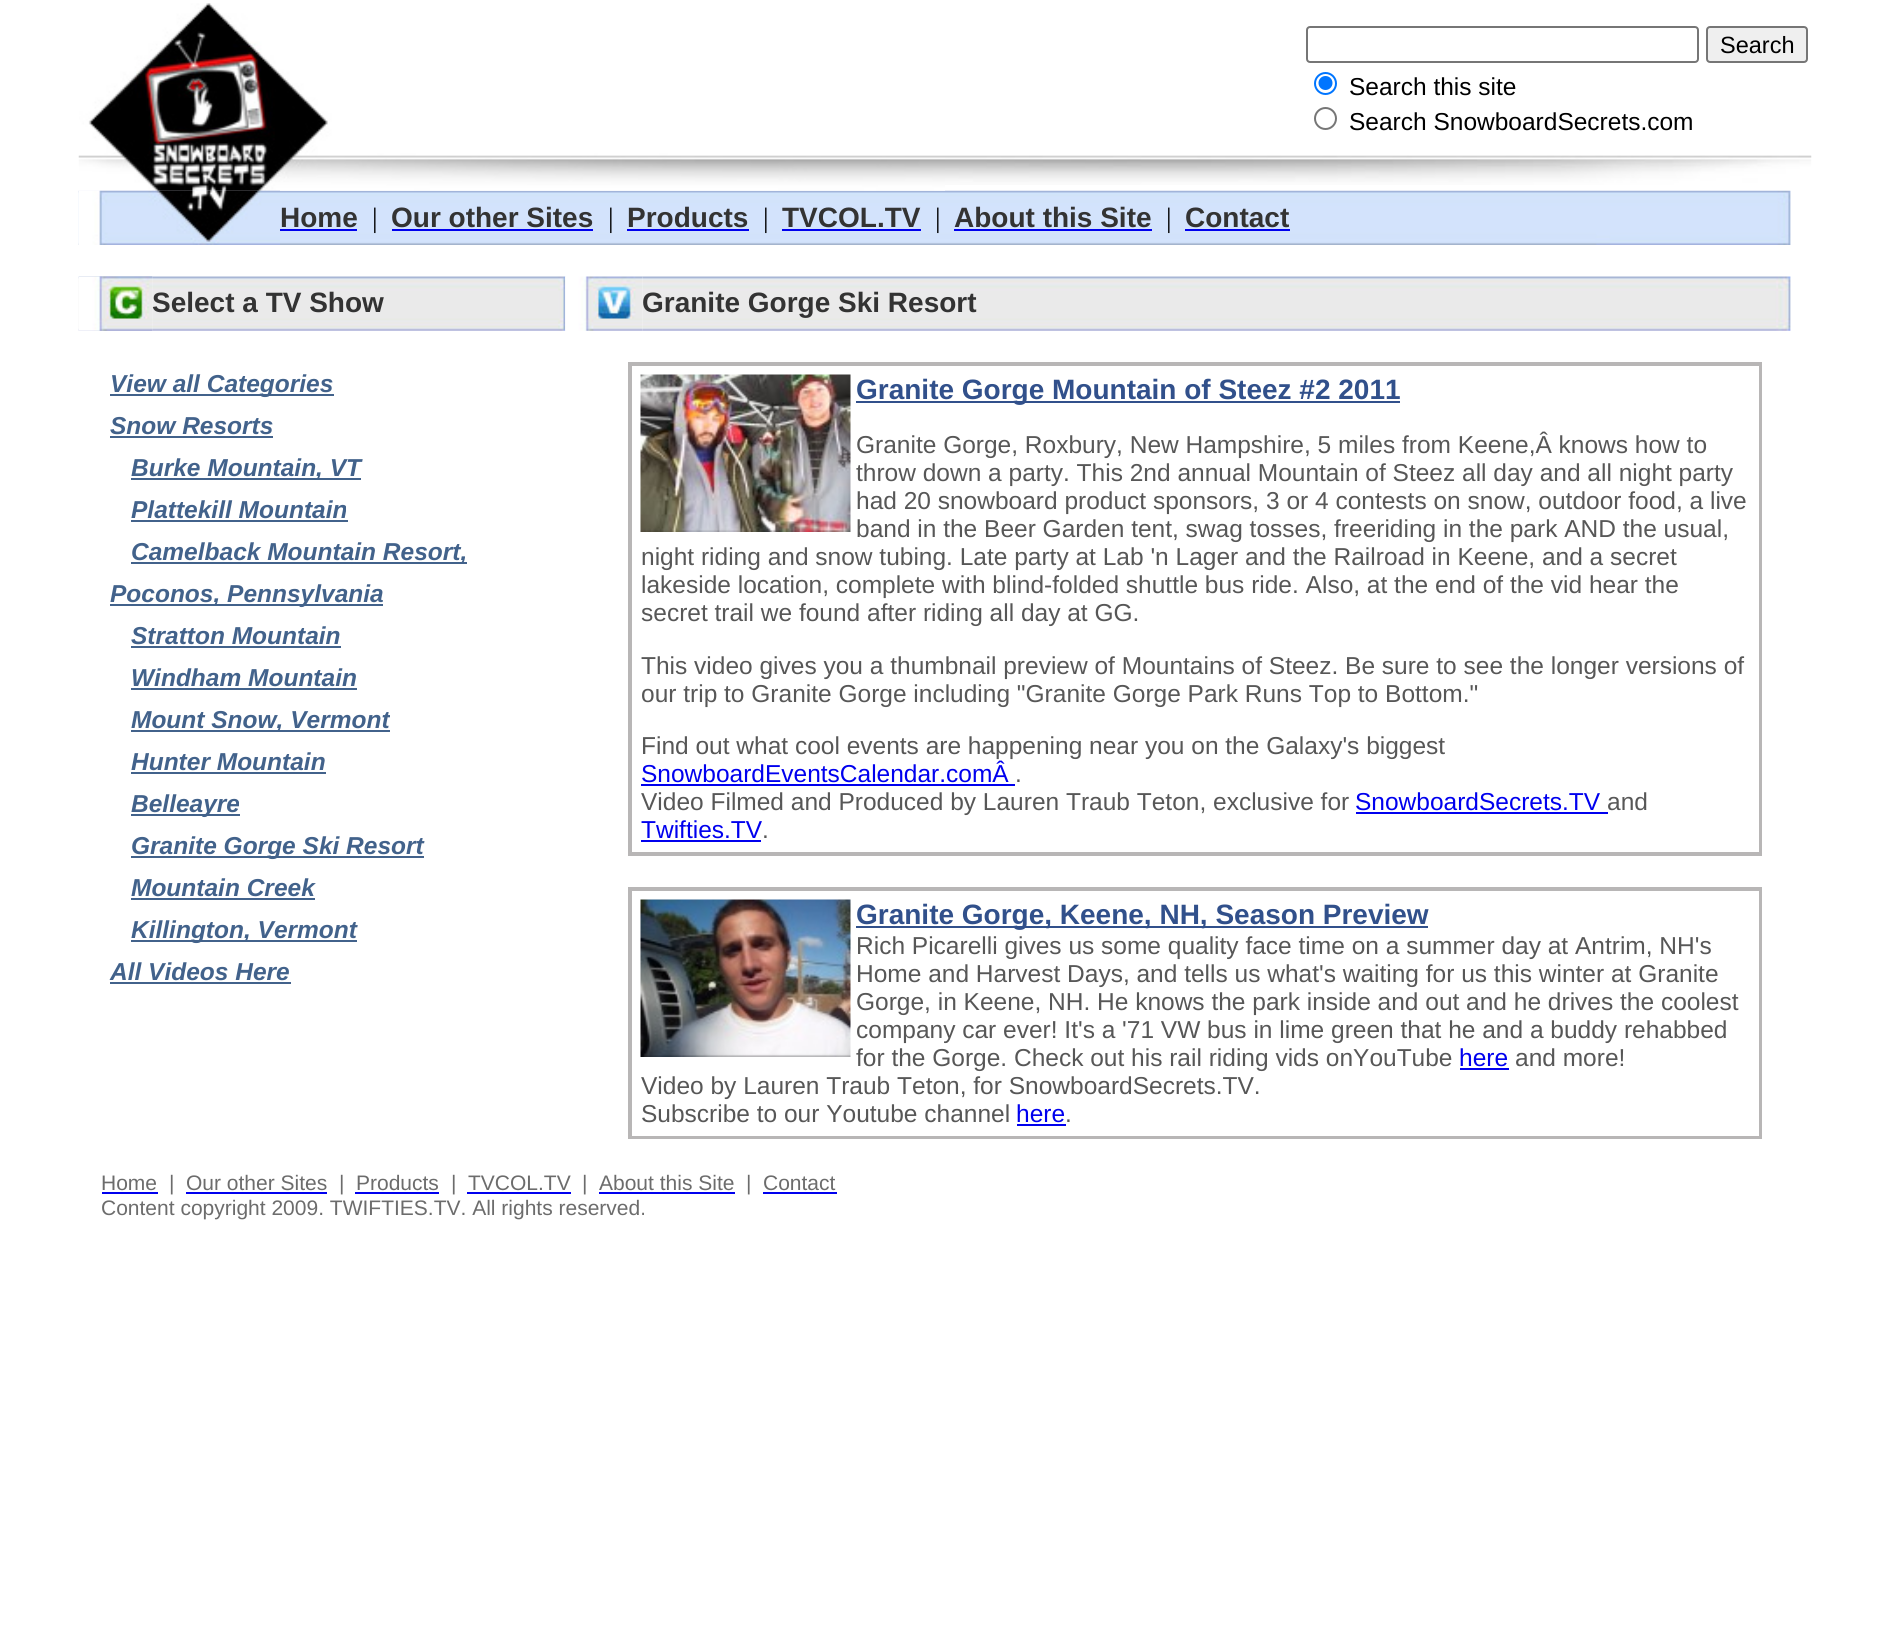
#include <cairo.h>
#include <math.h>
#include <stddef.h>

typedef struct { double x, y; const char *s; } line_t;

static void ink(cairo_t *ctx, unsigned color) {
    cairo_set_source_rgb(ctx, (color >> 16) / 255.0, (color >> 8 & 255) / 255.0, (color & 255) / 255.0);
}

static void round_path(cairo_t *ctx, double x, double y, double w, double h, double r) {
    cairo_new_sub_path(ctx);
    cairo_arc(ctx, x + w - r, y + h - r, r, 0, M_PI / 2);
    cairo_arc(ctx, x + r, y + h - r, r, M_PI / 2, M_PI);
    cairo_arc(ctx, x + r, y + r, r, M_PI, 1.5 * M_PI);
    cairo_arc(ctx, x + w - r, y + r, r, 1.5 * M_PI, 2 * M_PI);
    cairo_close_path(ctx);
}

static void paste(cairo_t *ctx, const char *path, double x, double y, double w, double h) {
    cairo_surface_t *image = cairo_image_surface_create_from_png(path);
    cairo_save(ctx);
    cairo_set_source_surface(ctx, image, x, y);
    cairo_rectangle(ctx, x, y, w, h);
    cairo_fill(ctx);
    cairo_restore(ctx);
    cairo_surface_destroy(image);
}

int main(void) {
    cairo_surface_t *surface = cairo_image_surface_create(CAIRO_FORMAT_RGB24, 1889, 1630);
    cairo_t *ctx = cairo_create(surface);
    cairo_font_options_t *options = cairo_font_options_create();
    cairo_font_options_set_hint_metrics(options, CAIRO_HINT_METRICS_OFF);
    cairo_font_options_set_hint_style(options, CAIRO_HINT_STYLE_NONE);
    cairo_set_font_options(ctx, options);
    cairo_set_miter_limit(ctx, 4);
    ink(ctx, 0xFFFFFF);
    cairo_paint(ctx);
    paste(ctx, "media/3.png", 78, 190, 202, 55);
    paste(ctx, "media/5.png", 280, 190, 1511, 55);
    paste(ctx, "media/1.png", 78, 3, 867, 188);
    paste(ctx, "media/2.png", 945, 155, 867, 30);
    round_path(ctx, 1307, 27, 391, 35, 3);
    ink(ctx, 0x767676);
    cairo_stroke(ctx);
    ink(ctx, 0xEFEFEF);
    round_path(ctx, 1707, 27, 100, 35, 3);
    cairo_fill_preserve(ctx);
    ink(ctx, 0x767676);
    cairo_stroke(ctx);
    cairo_select_font_face(ctx, "Liberation Sans", CAIRO_FONT_SLANT_NORMAL, CAIRO_FONT_WEIGHT_NORMAL);
    cairo_set_font_size(ctx, 23.5);
    ink(ctx, 0x000000);
    cairo_move_to(ctx, 1720, 53);
    cairo_show_text(ctx, "Search");
    cairo_new_path(ctx);
    cairo_arc(ctx, 1325.5, 83.5, 10.5, 0, 2 * M_PI);
    ink(ctx, 0x0075FF);
    cairo_stroke(ctx);
    cairo_arc(ctx, 1325.5, 83, 7, 0, 2 * M_PI);
    cairo_fill(ctx);
    cairo_set_font_size(ctx, 24.5);
    ink(ctx, 0x000000);
    cairo_move_to(ctx, 1349, 95);
    cairo_show_text(ctx, "Search this site");
    cairo_new_path(ctx);
    cairo_arc(ctx, 1325.5, 118.5, 10.5, 0, 2 * M_PI);
    ink(ctx, 0x767676);
    cairo_stroke(ctx);
    ink(ctx, 0x000000);
    cairo_move_to(ctx, 1349, 130);
    cairo_show_text(ctx, "Search SnowboardSecrets.com");
    paste(ctx, "media/4.png", 78, 190, 202, 55);
    cairo_select_font_face(ctx, "Liberation Sans", CAIRO_FONT_SLANT_NORMAL, CAIRO_FONT_WEIGHT_BOLD);
    cairo_set_font_size(ctx, 28);
    ink(ctx, 0x333333);
    cairo_move_to(ctx, 280, 227);
    cairo_show_text(ctx, "Home");
    ink(ctx, 0x0000EE);
    cairo_rectangle(ctx, 280, 229, 77, 2);
    cairo_fill(ctx);
    cairo_select_font_face(ctx, "Liberation Serif", CAIRO_FONT_SLANT_NORMAL, CAIRO_FONT_WEIGHT_NORMAL);
    ink(ctx, 0x000000);
    cairo_move_to(ctx, 372, 227);
    cairo_show_text(ctx, "|");
    cairo_select_font_face(ctx, "Liberation Sans", CAIRO_FONT_SLANT_NORMAL, CAIRO_FONT_WEIGHT_BOLD);
    ink(ctx, 0x333333);
    cairo_move_to(ctx, 391, 227);
    cairo_show_text(ctx, "Our other Sites");
    ink(ctx, 0x0000EE);
    cairo_rectangle(ctx, 392, 229, 201, 2);
    cairo_fill(ctx);
    cairo_select_font_face(ctx, "Liberation Serif", CAIRO_FONT_SLANT_NORMAL, CAIRO_FONT_WEIGHT_NORMAL);
    ink(ctx, 0x000000);
    cairo_move_to(ctx, 608, 227);
    cairo_show_text(ctx, "|");
    cairo_select_font_face(ctx, "Liberation Sans", CAIRO_FONT_SLANT_NORMAL, CAIRO_FONT_WEIGHT_BOLD);
    ink(ctx, 0x333333);
    cairo_move_to(ctx, 627, 227);
    cairo_show_text(ctx, "Products");
    ink(ctx, 0x0000EE);
    cairo_rectangle(ctx, 627, 229, 122, 2);
    cairo_fill(ctx);
    cairo_select_font_face(ctx, "Liberation Serif", CAIRO_FONT_SLANT_NORMAL, CAIRO_FONT_WEIGHT_NORMAL);
    ink(ctx, 0x000000);
    cairo_move_to(ctx, 763, 227);
    cairo_show_text(ctx, "|");
    cairo_select_font_face(ctx, "Liberation Sans", CAIRO_FONT_SLANT_NORMAL, CAIRO_FONT_WEIGHT_BOLD);
    ink(ctx, 0x333333);
    cairo_move_to(ctx, 782, 227);
    cairo_show_text(ctx, "TVCOL.TV");
    ink(ctx, 0x0000EE);
    cairo_rectangle(ctx, 782, 229, 139, 2);
    cairo_fill(ctx);
    cairo_select_font_face(ctx, "Liberation Serif", CAIRO_FONT_SLANT_NORMAL, CAIRO_FONT_WEIGHT_NORMAL);
    ink(ctx, 0x000000);
    cairo_move_to(ctx, 935, 227);
    cairo_show_text(ctx, "|");
    cairo_select_font_face(ctx, "Liberation Sans", CAIRO_FONT_SLANT_NORMAL, CAIRO_FONT_WEIGHT_BOLD);
    ink(ctx, 0x333333);
    cairo_move_to(ctx, 954, 227);
    cairo_show_text(ctx, "About this Site");
    ink(ctx, 0x0000EE);
    cairo_rectangle(ctx, 954, 229, 198, 2);
    cairo_fill(ctx);
    cairo_select_font_face(ctx, "Liberation Serif", CAIRO_FONT_SLANT_NORMAL, CAIRO_FONT_WEIGHT_NORMAL);
    ink(ctx, 0x000000);
    cairo_move_to(ctx, 1166, 227);
    cairo_show_text(ctx, "|");
    cairo_select_font_face(ctx, "Liberation Sans", CAIRO_FONT_SLANT_NORMAL, CAIRO_FONT_WEIGHT_BOLD);
    ink(ctx, 0x333333);
    cairo_move_to(ctx, 1185, 227);
    cairo_show_text(ctx, "Contact");
    ink(ctx, 0x0000EE);
    cairo_rectangle(ctx, 1185, 229, 105, 2);
    cairo_fill(ctx);
    paste(ctx, "media/6.png", 78, 276, 75, 55);
    paste(ctx, "media/8.png", 152, 276, 414, 55);
    paste(ctx, "media/7.png", 78, 276, 75, 55);
    ink(ctx, 0x333333);
    cairo_move_to(ctx, 152, 312);
    cairo_show_text(ctx, "Select a TV Show");
    paste(ctx, "media/10.png", 642, 276, 1149, 55);
    paste(ctx, "media/9.png", 565, 276, 78, 55);
    cairo_move_to(ctx, 642, 312);
    cairo_show_text(ctx, "Granite Gorge Ski Resort");
    ink(ctx, 0x42628B);
    cairo_rectangle(ctx, 110, 394, 224, 2);
    cairo_fill(ctx);
    cairo_select_font_face(ctx, "Liberation Sans", CAIRO_FONT_SLANT_ITALIC, CAIRO_FONT_WEIGHT_BOLD);
    cairo_set_font_size(ctx, 24.5);
    cairo_move_to(ctx, 110, 392);
    cairo_show_text(ctx, "View all Categories");
    cairo_move_to(ctx, 110, 434);
    cairo_show_text(ctx, "Snow Resorts");
    cairo_rectangle(ctx, 110, 436, 163, 2);
    cairo_fill(ctx);
    cairo_rectangle(ctx, 131, 478, 230, 2);
    cairo_fill(ctx);
    cairo_move_to(ctx, 131, 476);
    cairo_show_text(ctx, "Burke Mountain, VT");
    cairo_move_to(ctx, 131, 518);
    cairo_show_text(ctx, "Plattekill Mountain");
    cairo_rectangle(ctx, 131, 520, 217, 2);
    cairo_fill(ctx);
    cairo_rectangle(ctx, 131, 562, 336, 2);
    cairo_fill(ctx);
    cairo_move_to(ctx, 131, 560);
    cairo_show_text(ctx, "Camelback Mountain Resort,");
    cairo_rectangle(ctx, 110, 604, 273, 2);
    cairo_fill(ctx);
    cairo_move_to(ctx, 110, 602);
    cairo_show_text(ctx, "Poconos, Pennsylvania");
    cairo_move_to(ctx, 131, 644);
    cairo_show_text(ctx, "Stratton Mountain");
    cairo_rectangle(ctx, 131, 646, 210, 2);
    cairo_fill(ctx);
    cairo_move_to(ctx, 131, 686);
    cairo_show_text(ctx, "Windham Mountain");
    cairo_rectangle(ctx, 131, 688, 226, 2);
    cairo_fill(ctx);
    cairo_rectangle(ctx, 131, 730, 259, 2);
    cairo_fill(ctx);
    cairo_move_to(ctx, 131, 728);
    cairo_show_text(ctx, "Mount Snow, Vermont");
    cairo_move_to(ctx, 131, 770);
    cairo_show_text(ctx, "Hunter Mountain");
    cairo_rectangle(ctx, 131, 772, 195, 2);
    cairo_fill(ctx);
    cairo_rectangle(ctx, 131, 814, 109, 2);
    cairo_fill(ctx);
    cairo_move_to(ctx, 131, 812);
    cairo_show_text(ctx, "Belleayre");
    cairo_rectangle(ctx, 131, 856, 293, 2);
    cairo_fill(ctx);
    cairo_move_to(ctx, 131, 854);
    cairo_show_text(ctx, "Granite Gorge Ski Resort");
    cairo_move_to(ctx, 131, 896);
    cairo_show_text(ctx, "Mountain Creek");
    cairo_rectangle(ctx, 131, 898, 184, 2);
    cairo_fill(ctx);
    cairo_rectangle(ctx, 131, 940, 226, 2);
    cairo_fill(ctx);
    cairo_move_to(ctx, 131, 938);
    cairo_show_text(ctx, "Killington, Vermont");
    cairo_move_to(ctx, 110, 980);
    cairo_show_text(ctx, "All Videos Here");
    cairo_rectangle(ctx, 110, 982, 181, 2);
    cairo_fill(ctx);
    cairo_rectangle(ctx, 629, 363, 1132, 492);
    ink(ctx, 0xB8B6B6);
    cairo_stroke(ctx);
    cairo_rectangle(ctx, 631, 365, 1129, 488);
    cairo_stroke(ctx);
    paste(ctx, "media/11.png", 640, 374, 211, 158);
    ink(ctx, 0x31508B);
    cairo_rectangle(ctx, 856, 401, 544, 2);
    cairo_fill(ctx);
    cairo_select_font_face(ctx, "Liberation Sans", CAIRO_FONT_SLANT_NORMAL, CAIRO_FONT_WEIGHT_BOLD);
    cairo_set_font_size(ctx, 28);
    cairo_move_to(ctx, 856, 399);
    cairo_show_text(ctx, "Granite Gorge Mountain of Steez #2 2011");
    cairo_select_font_face(ctx, "Liberation Sans", CAIRO_FONT_SLANT_NORMAL, CAIRO_FONT_WEIGHT_NORMAL);
    cairo_set_font_size(ctx, 24.5);
    ink(ctx, 0x575757);
    {
        static const line_t items[] = {
            {856, 453, "Granite Gorge, Roxbury, New Hampshire, 5 miles from Keene,Â knows how to"},
            {856, 481, "throw down a party. This 2nd annual Mountain of Steez all day and all night party"},
            {856, 509, "had 20 snowboard product sponsors, 3 or 4 contests on snow, outdoor food, a live"},
            {856, 537, "band in the Beer Garden tent, swag tosses, freeriding in the park AND the usual,"},
            {641, 565, "night riding and snow tubing. Late party at Lab 'n Lager and the Railroad in Keene, and a secret"},
            {641, 593, "lakeside location, complete with blind-folded shuttle bus ride. Also, at the end of the vid hear the"},
            {641, 621, "secret trail we found after riding all day at GG."},
            {641, 674, "This video gives you a thumbnail preview of Mountains of Steez. Be sure to see the longer versions of"},
            {641, 702, "our trip to Granite Gorge including \"Granite Gorge Park Runs Top to Bottom.\""},
            {641, 754, "Find out what cool events are happening near you on the Galaxy's biggest"},
        };
        for (size_t i = 0; i < sizeof items / sizeof *items; i++) {
            cairo_move_to(ctx, items[i].x, items[i].y);
            cairo_show_text(ctx, items[i].s);
        }
    }
    ink(ctx, 0x0000EE);
    cairo_move_to(ctx, 641, 782);
    cairo_show_text(ctx, "SnowboardEventsCalendar.comÂ");
    cairo_rectangle(ctx, 641, 784, 374, 2);
    cairo_fill(ctx);
    ink(ctx, 0x575757);
    cairo_move_to(ctx, 1015, 782);
    cairo_show_text(ctx, ".");
    cairo_move_to(ctx, 641, 810);
    cairo_show_text(ctx, "Video Filmed and Produced by Lauren Traub Teton, exclusive for");
    ink(ctx, 0x0000EE);
    cairo_move_to(ctx, 1355, 810);
    cairo_show_text(ctx, "SnowboardSecrets.TV");
    cairo_rectangle(ctx, 1356, 812, 252, 2);
    cairo_fill(ctx);
    ink(ctx, 0x575757);
    cairo_move_to(ctx, 1607, 810);
    cairo_show_text(ctx, "and");
    ink(ctx, 0x0000EE);
    cairo_move_to(ctx, 641, 838);
    cairo_show_text(ctx, "Twifties.TV");
    cairo_rectangle(ctx, 641, 840, 120, 2);
    cairo_fill(ctx);
    ink(ctx, 0x575757);
    cairo_move_to(ctx, 762, 838);
    cairo_show_text(ctx, ".");
    cairo_rectangle(ctx, 629, 888, 1132, 250);
    ink(ctx, 0xB8B6B6);
    cairo_stroke(ctx);
    cairo_rectangle(ctx, 631, 890, 1129, 247);
    cairo_stroke(ctx);
    paste(ctx, "media/12.png", 640, 899, 211, 158);
    ink(ctx, 0x31508B);
    cairo_rectangle(ctx, 856, 926, 572, 2);
    cairo_fill(ctx);
    cairo_select_font_face(ctx, "Liberation Sans", CAIRO_FONT_SLANT_NORMAL, CAIRO_FONT_WEIGHT_BOLD);
    cairo_set_font_size(ctx, 28);
    cairo_move_to(ctx, 856, 924);
    cairo_show_text(ctx, "Granite Gorge, Keene, NH, Season Preview");
    cairo_select_font_face(ctx, "Liberation Sans", CAIRO_FONT_SLANT_NORMAL, CAIRO_FONT_WEIGHT_NORMAL);
    cairo_set_font_size(ctx, 24.5);
    ink(ctx, 0x575757);
    {
        static const line_t items[] = {
            {856, 954, "Rich Picarelli gives us some quality face time on a summer day at Antrim, NH's"},
            {856, 982, "Home and Harvest Days, and tells us what's waiting for us this winter at Granite"},
            {856, 1010, "Gorge, in Keene, NH. He knows the park inside and out and he drives the coolest"},
            {856, 1038, "company car ever! It's a '71 VW bus in lime green that he and a buddy rehabbed"},
            {856, 1066, "for the Gorge. Check out his rail riding vids onYouTube"},
        };
        for (size_t i = 0; i < sizeof items / sizeof *items; i++) {
            cairo_move_to(ctx, items[i].x, items[i].y);
            cairo_show_text(ctx, items[i].s);
        }
    }
    ink(ctx, 0x0000EE);
    cairo_move_to(ctx, 1459, 1066);
    cairo_show_text(ctx, "here");
    cairo_rectangle(ctx, 1460, 1068, 49, 2);
    cairo_fill(ctx);
    ink(ctx, 0x575757);
    {
        static const line_t items[] = {
            {1515, 1066, "and more!"},
            {641, 1094, "Video by Lauren Traub Teton, for SnowboardSecrets.TV."},
            {641, 1122, "Subscribe to our Youtube channel"},
        };
        for (size_t i = 0; i < sizeof items / sizeof *items; i++) {
            cairo_move_to(ctx, items[i].x, items[i].y);
            cairo_show_text(ctx, items[i].s);
        }
    }
    ink(ctx, 0x0000EE);
    cairo_move_to(ctx, 1016, 1122);
    cairo_show_text(ctx, "here");
    ink(ctx, 0x575757);
    cairo_move_to(ctx, 1065, 1122);
    cairo_show_text(ctx, ".");
    ink(ctx, 0x0000EE);
    cairo_rectangle(ctx, 1017, 1124, 49, 2);
    cairo_fill(ctx);
    cairo_set_font_size(ctx, 21);
    ink(ctx, 0x6C6C6C);
    cairo_move_to(ctx, 101, 1190);
    cairo_show_text(ctx, "Home");
    ink(ctx, 0x0000EE);
    cairo_rectangle(ctx, 102, 1192, 56, 2);
    cairo_fill(ctx);
    ink(ctx, 0x6C6C6C);
    cairo_move_to(ctx, 169, 1190);
    cairo_show_text(ctx, "|");
    cairo_move_to(ctx, 186, 1190);
    cairo_show_text(ctx, "Our other Sites");
    ink(ctx, 0x0000EE);
    cairo_rectangle(ctx, 186, 1192, 141, 2);
    cairo_fill(ctx);
    ink(ctx, 0x6C6C6C);
    cairo_move_to(ctx, 339, 1190);
    cairo_show_text(ctx, "|");
    cairo_move_to(ctx, 356, 1190);
    cairo_show_text(ctx, "Products");
    ink(ctx, 0x0000EE);
    cairo_rectangle(ctx, 355, 1192, 84, 2);
    cairo_fill(ctx);
    ink(ctx, 0x6C6C6C);
    cairo_move_to(ctx, 451, 1190);
    cairo_show_text(ctx, "|");
    cairo_move_to(ctx, 468, 1190);
    cairo_show_text(ctx, "TVCOL.TV");
    ink(ctx, 0x0000EE);
    cairo_rectangle(ctx, 467, 1192, 104, 2);
    cairo_fill(ctx);
    ink(ctx, 0x6C6C6C);
    cairo_move_to(ctx, 582, 1190);
    cairo_show_text(ctx, "|");
    cairo_move_to(ctx, 599, 1190);
    cairo_show_text(ctx, "About this Site");
    ink(ctx, 0x0000EE);
    cairo_rectangle(ctx, 599, 1192, 136, 2);
    cairo_fill(ctx);
    ink(ctx, 0x6C6C6C);
    cairo_move_to(ctx, 746, 1190);
    cairo_show_text(ctx, "|");
    cairo_move_to(ctx, 763, 1190);
    cairo_show_text(ctx, "Contact");
    ink(ctx, 0x0000EE);
    cairo_rectangle(ctx, 763, 1192, 74, 2);
    cairo_fill(ctx);
    ink(ctx, 0x6C6C6C);
    cairo_move_to(ctx, 101, 1215);
    cairo_show_text(ctx, "Content copyright 2009. TWIFTIES.TV. All rights reserved.");
    cairo_surface_write_to_png(surface, "image.png");
    cairo_font_options_destroy(options);
    cairo_destroy(ctx);
    cairo_surface_destroy(surface);
    return 0;
}
